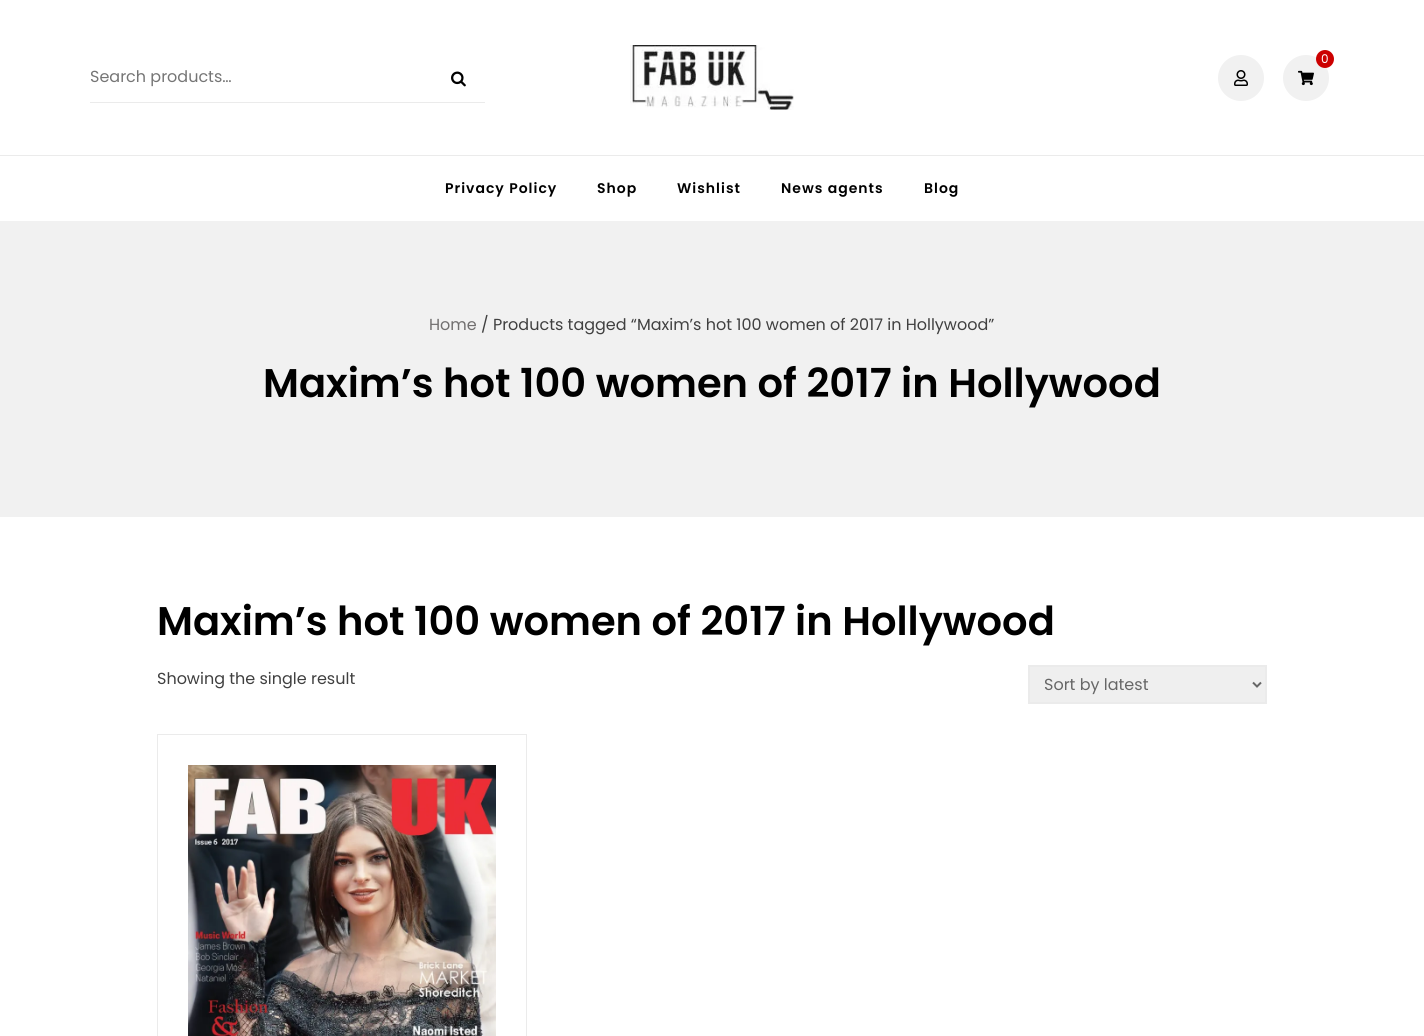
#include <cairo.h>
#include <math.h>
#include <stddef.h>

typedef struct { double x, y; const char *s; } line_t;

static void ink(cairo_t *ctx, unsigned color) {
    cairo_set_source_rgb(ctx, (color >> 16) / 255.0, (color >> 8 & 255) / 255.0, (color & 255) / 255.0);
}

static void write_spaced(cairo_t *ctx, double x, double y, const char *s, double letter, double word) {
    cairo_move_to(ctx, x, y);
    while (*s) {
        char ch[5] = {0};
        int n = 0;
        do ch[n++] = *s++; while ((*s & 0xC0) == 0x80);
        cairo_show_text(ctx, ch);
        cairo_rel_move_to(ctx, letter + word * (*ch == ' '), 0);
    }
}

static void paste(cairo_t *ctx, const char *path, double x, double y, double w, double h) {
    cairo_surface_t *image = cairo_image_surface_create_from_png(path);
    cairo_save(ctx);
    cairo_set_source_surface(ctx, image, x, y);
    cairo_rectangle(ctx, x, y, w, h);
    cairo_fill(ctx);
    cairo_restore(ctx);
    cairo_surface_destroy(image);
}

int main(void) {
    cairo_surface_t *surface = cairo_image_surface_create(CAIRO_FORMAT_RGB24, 1424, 1036);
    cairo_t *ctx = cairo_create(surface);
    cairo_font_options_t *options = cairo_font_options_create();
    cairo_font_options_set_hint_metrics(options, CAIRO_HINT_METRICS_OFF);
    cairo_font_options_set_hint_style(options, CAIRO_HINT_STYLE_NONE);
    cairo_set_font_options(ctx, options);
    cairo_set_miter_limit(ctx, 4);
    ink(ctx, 0xFFFFFF);
    cairo_paint(ctx);
    paste(ctx, "media/1.png", 630, 45, 164, 65);
    ink(ctx, 0xF1F1F1);
    cairo_arc(ctx, 1241, 78, 23, 0, 2 * M_PI);
    cairo_fill(ctx);
    paste(ctx, "media/2.png", 1234, 70, 14, 16);
    cairo_arc(ctx, 1306, 78, 23, 0, 2 * M_PI);
    cairo_fill(ctx);
    ink(ctx, 0xCC0000);
    cairo_arc(ctx, 1325, 59, 9, 0, 2 * M_PI);
    cairo_fill(ctx);
    cairo_select_font_face(ctx, "Poppins", CAIRO_FONT_SLANT_NORMAL, CAIRO_FONT_WEIGHT_NORMAL);
    cairo_set_font_size(ctx, 12);
    ink(ctx, 0xFFFFFF);
    cairo_move_to(ctx, 1321, 63);
    cairo_show_text(ctx, "0");
    paste(ctx, "media/3.png", 1298, 70, 16, 16);
    ink(ctx, 0xEBEBEB);
    cairo_rectangle(ctx, 90, 102, 395, 1);
    cairo_fill(ctx);
    cairo_set_font_size(ctx, 16);
    ink(ctx, 0x757575);
    cairo_move_to(ctx, 90, 82);
    cairo_show_text(ctx, "Search products…");
    paste(ctx, "media/4.png", 451, 71, 15, 16);
    ink(ctx, 0xEBEBEB);
    cairo_rectangle(ctx, 0, 155, 1424, 1);
    cairo_fill(ctx);
    cairo_select_font_face(ctx, "Poppins SemiBold", CAIRO_FONT_SLANT_NORMAL, CAIRO_FONT_WEIGHT_NORMAL);
    cairo_set_font_size(ctx, 14);
    ink(ctx, 0x000000);
    {
        static const line_t items[] = {
            {445, 193, "Privacy Policy"},
            {597, 193, "Shop"},
            {677, 193, "Wishlist"},
            {781, 193, "News agents"},
            {924, 193, "Blog"},
        };
        for (size_t i = 0; i < sizeof items / sizeof *items; i++) {
            write_spaced(ctx, items[i].x, items[i].y, items[i].s, 1, 0);
        }
    }
    ink(ctx, 0xF1F1F1);
    cairo_rectangle(ctx, 0, 221, 1424, 296);
    cairo_fill(ctx);
    cairo_select_font_face(ctx, "Poppins", CAIRO_FONT_SLANT_NORMAL, CAIRO_FONT_WEIGHT_NORMAL);
    cairo_set_font_size(ctx, 16);
    ink(ctx, 0x716F6F);
    cairo_move_to(ctx, 429, 330);
    cairo_show_text(ctx, "Home");
    ink(ctx, 0x404040);
    cairo_move_to(ctx, 481, 330);
    cairo_show_text(ctx, "/ Products tagged “Maxim’s hot 100 women of 2017 in Hollywood”");
    cairo_select_font_face(ctx, "Poppins SemiBold", CAIRO_FONT_SLANT_NORMAL, CAIRO_FONT_WEIGHT_NORMAL);
    cairo_set_font_size(ctx, 40);
    ink(ctx, 0x000000);
    cairo_move_to(ctx, 263, 397);
    cairo_show_text(ctx, "Maxim’s hot 100 women of 2017 in Hollywood");
    cairo_move_to(ctx, 157, 635);
    cairo_show_text(ctx, "Maxim’s hot 100 women of 2017 in Hollywood");
    cairo_select_font_face(ctx, "Poppins", CAIRO_FONT_SLANT_NORMAL, CAIRO_FONT_WEIGHT_NORMAL);
    cairo_set_font_size(ctx, 16);
    ink(ctx, 0x404040);
    cairo_move_to(ctx, 157, 684);
    cairo_show_text(ctx, "Showing the single result");
    ink(ctx, 0xEFEFEF);
    cairo_rectangle(ctx, 1029, 666, 237, 37);
    cairo_fill_preserve(ctx);
    ink(ctx, 0xEBEBEB);
    cairo_stroke(ctx);
    cairo_new_path(ctx);
    cairo_move_to(ctx, 1253, 682.5);
    cairo_line_to(ctx, 1257, 686.5);
    cairo_line_to(ctx, 1261, 682.5);
    ink(ctx, 0x666666);
    cairo_stroke(ctx);
    cairo_move_to(ctx, 1044, 690);
    cairo_show_text(ctx, "Sort by latest");
    cairo_rectangle(ctx, 157.5, 734.5, 369, 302);
    ink(ctx, 0xEBEBEB);
    cairo_set_line_width(ctx, 1);
    cairo_stroke(ctx);
    paste(ctx, "media/5.png", 188, 765, 308, 271);
    cairo_surface_write_to_png(surface, "image.png");
    cairo_font_options_destroy(options);
    cairo_destroy(ctx);
    cairo_surface_destroy(surface);
    return 0;
}
